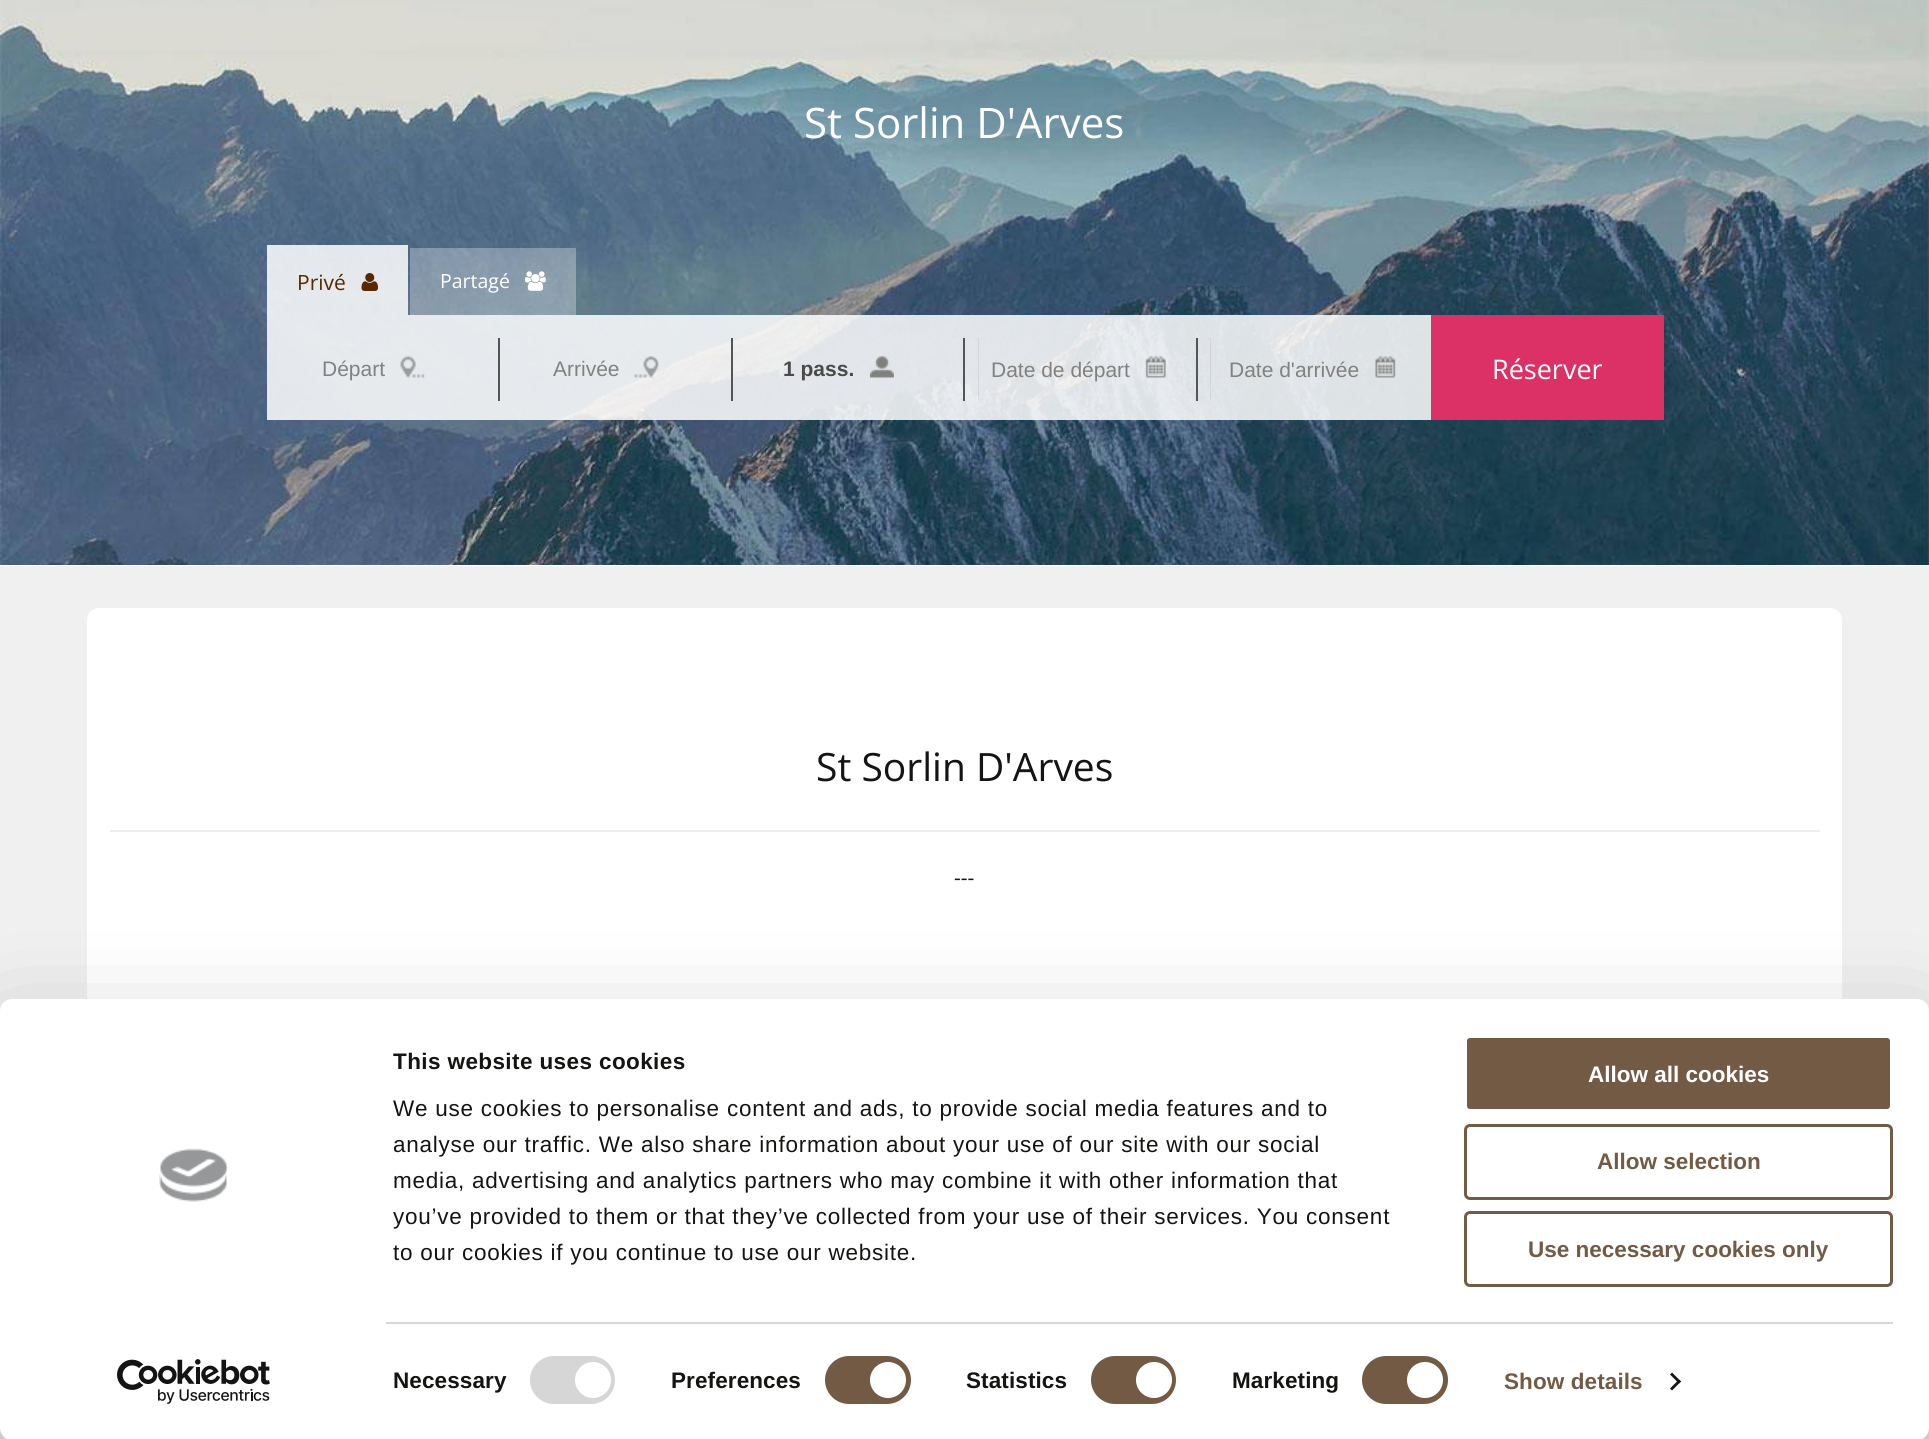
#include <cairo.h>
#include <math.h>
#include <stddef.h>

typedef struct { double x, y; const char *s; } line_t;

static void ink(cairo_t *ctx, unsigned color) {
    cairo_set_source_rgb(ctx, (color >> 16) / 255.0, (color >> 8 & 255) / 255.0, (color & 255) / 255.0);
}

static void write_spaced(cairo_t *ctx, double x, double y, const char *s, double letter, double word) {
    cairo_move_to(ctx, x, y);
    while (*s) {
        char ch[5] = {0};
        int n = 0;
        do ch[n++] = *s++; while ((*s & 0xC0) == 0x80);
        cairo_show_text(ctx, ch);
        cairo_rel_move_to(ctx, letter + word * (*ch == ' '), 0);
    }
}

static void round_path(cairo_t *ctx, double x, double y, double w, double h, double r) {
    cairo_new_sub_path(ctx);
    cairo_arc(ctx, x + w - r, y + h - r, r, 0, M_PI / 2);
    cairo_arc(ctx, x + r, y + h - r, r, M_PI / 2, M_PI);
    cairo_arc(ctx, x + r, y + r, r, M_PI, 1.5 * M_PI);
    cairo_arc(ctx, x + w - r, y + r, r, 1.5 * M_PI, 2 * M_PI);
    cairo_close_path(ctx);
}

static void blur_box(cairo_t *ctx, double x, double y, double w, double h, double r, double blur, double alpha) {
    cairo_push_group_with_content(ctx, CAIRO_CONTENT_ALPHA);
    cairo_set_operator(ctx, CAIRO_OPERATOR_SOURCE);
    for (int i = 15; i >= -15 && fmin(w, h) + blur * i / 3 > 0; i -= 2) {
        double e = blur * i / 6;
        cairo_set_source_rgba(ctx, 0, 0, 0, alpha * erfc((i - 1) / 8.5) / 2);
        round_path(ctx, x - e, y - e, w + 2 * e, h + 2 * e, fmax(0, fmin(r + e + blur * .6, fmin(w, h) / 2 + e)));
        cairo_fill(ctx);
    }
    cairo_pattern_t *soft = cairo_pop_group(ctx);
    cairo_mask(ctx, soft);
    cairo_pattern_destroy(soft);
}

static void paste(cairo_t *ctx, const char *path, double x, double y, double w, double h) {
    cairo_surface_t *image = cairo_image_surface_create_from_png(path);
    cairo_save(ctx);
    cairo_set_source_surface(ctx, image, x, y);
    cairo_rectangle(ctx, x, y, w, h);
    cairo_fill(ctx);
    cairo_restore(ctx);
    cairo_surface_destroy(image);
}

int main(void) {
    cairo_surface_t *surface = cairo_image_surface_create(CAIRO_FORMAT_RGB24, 1929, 1439);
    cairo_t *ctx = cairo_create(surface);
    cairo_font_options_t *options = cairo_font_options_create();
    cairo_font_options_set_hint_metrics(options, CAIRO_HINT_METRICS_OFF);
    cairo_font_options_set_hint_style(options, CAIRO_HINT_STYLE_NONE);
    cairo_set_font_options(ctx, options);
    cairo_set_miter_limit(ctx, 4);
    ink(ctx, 0xFFFFFF);
    cairo_paint(ctx);
    paste(ctx, "media/1.png", 0, 0, 1929, 565);
    cairo_select_font_face(ctx, "Open Sans", CAIRO_FONT_SLANT_NORMAL, CAIRO_FONT_WEIGHT_NORMAL);
    cairo_set_font_size(ctx, 42);
    ink(ctx, 0xFFFFFF);
    cairo_move_to(ctx, 804, 138);
    cairo_show_text(ctx, "St Sorlin D'Arves");
    cairo_set_source_rgba(ctx, 1, 1, 1, 0.85);
    cairo_rectangle(ctx, 267, 245, 141, 70);
    cairo_fill(ctx);
    cairo_set_font_size(ctx, 21);
    ink(ctx, 0x582800);
    cairo_move_to(ctx, 297, 290);
    cairo_show_text(ctx, "Privé");
    paste(ctx, "media/2.png", 361, 273, 17, 18);
    cairo_set_source_rgba(ctx, 1, 1, 1, 0.3);
    cairo_rectangle(ctx, 410, 248, 166, 67);
    cairo_fill(ctx);
    cairo_set_font_size(ctx, 19.5);
    ink(ctx, 0xFFFFFF);
    cairo_move_to(ctx, 440, 288);
    cairo_show_text(ctx, "Partagé");
    paste(ctx, "media/3.png", 525, 271, 21, 20);
    cairo_set_source_rgba(ctx, 1, 1, 1, 0.85);
    cairo_rectangle(ctx, 267, 315, 1164, 105);
    cairo_fill(ctx);
    ink(ctx, 0x545557);
    cairo_rectangle(ctx, 498, 338, 2, 63);
    cairo_fill(ctx);
    cairo_select_font_face(ctx, "Liberation Sans", CAIRO_FONT_SLANT_NORMAL, CAIRO_FONT_WEIGHT_NORMAL);
    cairo_set_font_size(ctx, 21);
    ink(ctx, 0x81817F);
    cairo_move_to(ctx, 322, 376);
    cairo_show_text(ctx, "Départ");
    paste(ctx, "media/4.png", 400, 356, 25, 22);
    ink(ctx, 0x545557);
    cairo_rectangle(ctx, 731, 338, 2, 63);
    cairo_fill(ctx);
    ink(ctx, 0x81817F);
    cairo_move_to(ctx, 553, 376);
    cairo_show_text(ctx, "Arrivée");
    paste(ctx, "media/5.png", 634, 356, 25, 22);
    ink(ctx, 0x545557);
    cairo_rectangle(ctx, 963, 338, 2, 63);
    cairo_fill(ctx);
    cairo_select_font_face(ctx, "Liberation Sans", CAIRO_FONT_SLANT_NORMAL, CAIRO_FONT_WEIGHT_BOLD);
    ink(ctx, 0x4A4A4A);
    cairo_move_to(ctx, 783, 376);
    cairo_show_text(ctx, "1 pass.");
    paste(ctx, "media/6.png", 870, 356, 24, 22);
    ink(ctx, 0x545557);
    cairo_rectangle(ctx, 1196, 338, 2, 63);
    cairo_fill(ctx);
    cairo_set_source_rgba(ctx, 0, 0, 0, 0.07);
    cairo_new_path(ctx);
    cairo_move_to(ctx, 977, 339);
    cairo_line_to(ctx, 978, 340);
    cairo_line_to(ctx, 978, 401);
    cairo_line_to(ctx, 979, 400);
    cairo_line_to(ctx, 979, 339);
    cairo_curve_to(ctx, 979, 338, 977, 338, 977, 339);
    cairo_close_path(ctx);
    cairo_fill(ctx);
    cairo_select_font_face(ctx, "Liberation Sans", CAIRO_FONT_SLANT_NORMAL, CAIRO_FONT_WEIGHT_NORMAL);
    ink(ctx, 0x81817F);
    cairo_move_to(ctx, 991, 377);
    cairo_show_text(ctx, "Date de départ");
    paste(ctx, "media/7.png", 1145, 356, 21, 22);
    cairo_set_source_rgba(ctx, 0, 0, 0, 0.07);
    cairo_new_path(ctx);
    cairo_move_to(ctx, 1210, 339);
    cairo_line_to(ctx, 1210, 401);
    cairo_line_to(ctx, 1211, 400);
    cairo_line_to(ctx, 1211, 339);
    cairo_curve_to(ctx, 1211, 337, 1209, 338, 1209, 340);
    cairo_close_path(ctx);
    cairo_fill(ctx);
    ink(ctx, 0x81817F);
    cairo_move_to(ctx, 1229, 377);
    cairo_show_text(ctx, "Date d'arrivée");
    paste(ctx, "media/8.png", 1375, 356, 21, 22);
    ink(ctx, 0xDC3166);
    cairo_rectangle(ctx, 1431, 315, 233, 105);
    cairo_fill(ctx);
    cairo_select_font_face(ctx, "Open Sans", CAIRO_FONT_SLANT_NORMAL, CAIRO_FONT_WEIGHT_NORMAL);
    cairo_set_font_size(ctx, 27);
    ink(ctx, 0xFFFFFF);
    cairo_move_to(ctx, 1492, 379);
    cairo_show_text(ctx, "Réserver");
    ink(ctx, 0xF0F0F0);
    cairo_rectangle(ctx, 0, 566, 1929, 445);
    cairo_fill(ctx);
    ink(ctx, 0xFFFFFF);
    round_path(ctx, 87, 608, 1755, 417, 12);
    cairo_fill(ctx);
    cairo_set_font_size(ctx, 39);
    ink(ctx, 0x141412);
    cairo_move_to(ctx, 816, 781);
    cairo_show_text(ctx, "St Sorlin D'Arves");
    ink(ctx, 0xEEEEEE);
    cairo_rectangle(ctx, 110, 830, 1710, 2);
    cairo_fill(ctx);
    cairo_set_font_size(ctx, 21);
    ink(ctx, 0x141412);
    cairo_move_to(ctx, 954, 885);
    cairo_show_text(ctx, "---");
    ink(ctx, 0xF0F0F0);
    cairo_rectangle(ctx, 0, 1428, 1929, 11);
    cairo_fill(ctx);
    ink(ctx, 0x000000);
    blur_box(ctx, 0, 1044, 1929, 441, 12, 52.5, 0.3);
    ink(ctx, 0xFFFFFF);
    round_path(ctx, 0, 999, 1929, 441, 12);
    cairo_fill(ctx);
    paste(ctx, "media/9.png", 159, 1148, 69, 54);
    paste(ctx, "media/10.png", 117, 1359, 153, 45);
    cairo_select_font_face(ctx, "Liberation Sans", CAIRO_FONT_SLANT_NORMAL, CAIRO_FONT_WEIGHT_BOLD);
    cairo_set_font_size(ctx, 22.5);
    ink(ctx, 0x141412);
    write_spaced(ctx, 393, 1069, "This website uses cookies", 0.4, 0);
    cairo_select_font_face(ctx, "Liberation Sans", CAIRO_FONT_SLANT_NORMAL, CAIRO_FONT_WEIGHT_NORMAL);
    {
        static const line_t items[] = {
            {393, 1116, "We use cookies to personalise content and ads, to provide social media features and to"},
            {393, 1152, "analyse our traffic. We also share information about your use of our site with our social"},
            {393, 1188, "media, advertising and analytics partners who may combine it with other information that"},
            {393, 1224, "you’ve provided to them or that they’ve collected from your use of their services. You consent"},
            {393, 1260, "to our cookies if you continue to use our website."},
        };
        for (size_t i = 0; i < sizeof items / sizeof *items; i++) {
            write_spaced(ctx, items[i].x, items[i].y, items[i].s, 0.75, 0);
        }
    }
    ink(ctx, 0xD6D6D6);
    cairo_rectangle(ctx, 386, 1322, 1507, 2);
    cairo_fill(ctx);
    cairo_select_font_face(ctx, "Liberation Sans", CAIRO_FONT_SLANT_NORMAL, CAIRO_FONT_WEIGHT_BOLD);
    ink(ctx, 0x141412);
    write_spaced(ctx, 393, 1388, "Necessary", 0.1, 0);
    ink(ctx, 0xD6D6D6);
    round_path(ctx, 530, 1356, 85, 48, 24);
    cairo_fill(ctx);
    ink(ctx, 0xFFFFFF);
    cairo_arc(ctx, 593, 1380, 18, 0, 2 * M_PI);
    cairo_fill(ctx);
    ink(ctx, 0x141412);
    write_spaced(ctx, 671, 1388, "Preferences", 0.1, 0);
    ink(ctx, 0x735A45);
    round_path(ctx, 825, 1356, 86, 48, 24);
    cairo_fill(ctx);
    ink(ctx, 0xFFFFFF);
    cairo_arc(ctx, 888, 1380, 18, 0, 2 * M_PI);
    cairo_fill(ctx);
    ink(ctx, 0x141412);
    write_spaced(ctx, 966, 1388, "Statistics", 0.1, 0);
    ink(ctx, 0x735A45);
    round_path(ctx, 1091, 1356, 85, 48, 24);
    cairo_fill(ctx);
    ink(ctx, 0xFFFFFF);
    cairo_arc(ctx, 1154, 1380, 18, 0, 2 * M_PI);
    cairo_fill(ctx);
    ink(ctx, 0x141412);
    write_spaced(ctx, 1232, 1388, "Marketing", 0.1, 0);
    ink(ctx, 0x735A45);
    round_path(ctx, 1362, 1356, 86, 48, 24);
    cairo_fill(ctx);
    ink(ctx, 0xFFFFFF);
    cairo_arc(ctx, 1425, 1380, 18, 0, 2 * M_PI);
    cairo_fill(ctx);
    ink(ctx, 0x735A45);
    write_spaced(ctx, 1504, 1389, "Show details", 0.1, 0);
    ink(ctx, 0x141414);
    cairo_new_path(ctx);
    cairo_move_to(ctx, 1672, 1372.5);
    cairo_line_to(ctx, 1681, 1381.5);
    cairo_line_to(ctx, 1679, 1383.5);
    cairo_line_to(ctx, 1670, 1374.5);
    cairo_close_path(ctx);
    cairo_fill(ctx);
    cairo_new_path(ctx);
    cairo_move_to(ctx, 1679, 1379.5);
    cairo_line_to(ctx, 1681, 1381.5);
    cairo_line_to(ctx, 1672, 1390.5);
    cairo_line_to(ctx, 1670, 1388.5);
    cairo_close_path(ctx);
    cairo_fill(ctx);
    ink(ctx, 0x735A45);
    round_path(ctx, 1465.5, 1036.5, 426, 74, 4.5);
    cairo_fill_preserve(ctx);
    ink(ctx, 0xFFFFFF);
    cairo_set_line_width(ctx, 3);
    cairo_stroke(ctx);
    cairo_move_to(ctx, 1588, 1082);
    cairo_show_text(ctx, "Allow all cookies");
    round_path(ctx, 1465.5, 1125.5, 426, 73, 4.5);
    ink(ctx, 0x735A45);
    cairo_stroke(ctx);
    cairo_move_to(ctx, 1597, 1169);
    cairo_show_text(ctx, "Allow selection");
    round_path(ctx, 1465.5, 1212.5, 426, 73, 4.5);
    cairo_stroke(ctx);
    cairo_move_to(ctx, 1528, 1257);
    cairo_show_text(ctx, "Use necessary cookies only");
    cairo_surface_write_to_png(surface, "image.png");
    cairo_font_options_destroy(options);
    cairo_destroy(ctx);
    cairo_surface_destroy(surface);
    return 0;
}
